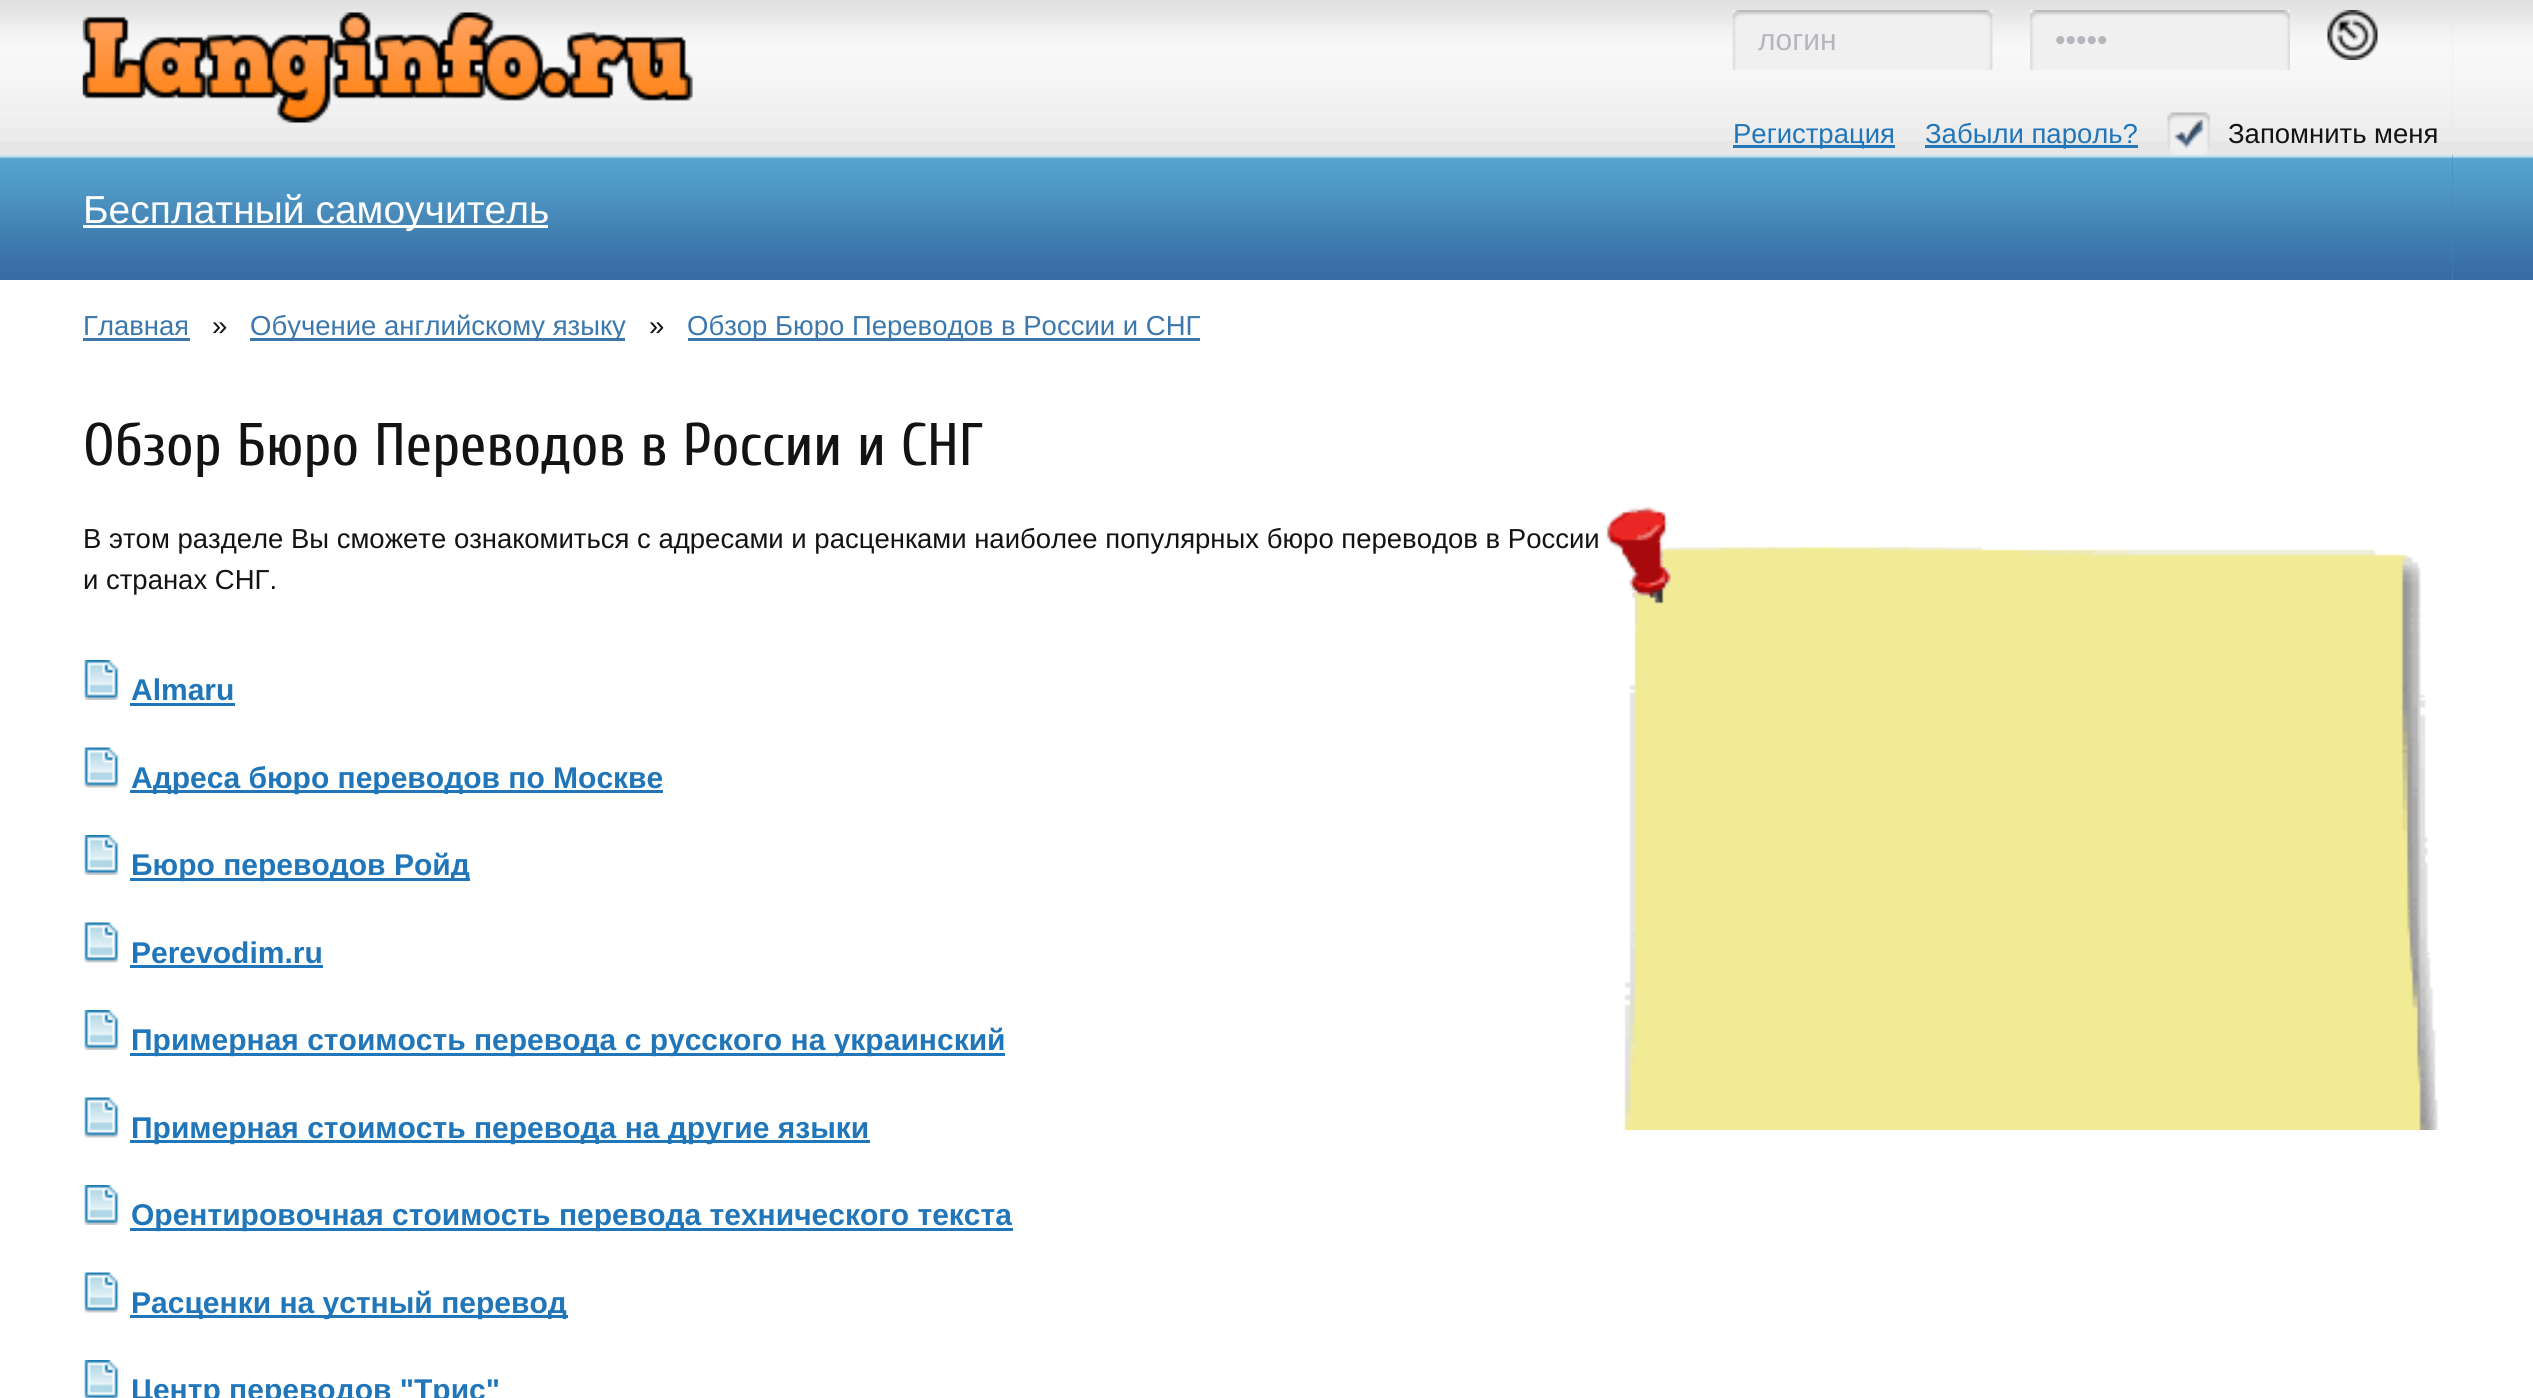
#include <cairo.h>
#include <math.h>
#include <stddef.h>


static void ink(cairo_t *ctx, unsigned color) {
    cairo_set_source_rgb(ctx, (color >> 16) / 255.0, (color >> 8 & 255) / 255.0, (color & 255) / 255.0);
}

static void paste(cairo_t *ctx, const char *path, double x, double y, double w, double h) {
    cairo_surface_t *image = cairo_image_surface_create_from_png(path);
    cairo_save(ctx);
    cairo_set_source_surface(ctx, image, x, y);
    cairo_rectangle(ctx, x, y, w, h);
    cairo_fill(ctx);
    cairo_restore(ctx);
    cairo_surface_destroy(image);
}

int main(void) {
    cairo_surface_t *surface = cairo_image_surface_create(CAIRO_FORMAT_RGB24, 2533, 1398);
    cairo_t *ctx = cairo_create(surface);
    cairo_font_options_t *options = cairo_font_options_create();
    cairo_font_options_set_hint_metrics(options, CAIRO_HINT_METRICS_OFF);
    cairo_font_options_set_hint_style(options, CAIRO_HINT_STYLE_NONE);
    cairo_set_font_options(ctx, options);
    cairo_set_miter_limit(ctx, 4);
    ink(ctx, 0xFFFFFF);
    cairo_paint(ctx);
    ink(ctx, 0xE6E6E6);
    cairo_rectangle(ctx, 0, 141, 2533, 14);
    cairo_fill(ctx);
    paste(ctx, "media/1.png", 0, 0, 2533, 141);
    cairo_rectangle(ctx, 83, 0, 2370, 141);
    cairo_fill(ctx);
    paste(ctx, "media/2.png", 83, 0, 2370, 141);
    paste(ctx, "media/3.png", 82, 12, 611, 111);
    paste(ctx, "media/4.png", 1732, 10, 261, 60);
    cairo_select_font_face(ctx, "Liberation Sans", CAIRO_FONT_SLANT_NORMAL, CAIRO_FONT_WEIGHT_NORMAL);
    cairo_set_font_size(ctx, 30);
    ink(ctx, 0xB3B7BD);
    cairo_move_to(ctx, 1758, 50);
    cairo_show_text(ctx, "логин");
    paste(ctx, "media/5.png", 2030, 10, 260, 60);
    cairo_move_to(ctx, 2055, 50);
    cairo_show_text(ctx, "•••••");
    paste(ctx, "media/6.png", 2327, 10, 51, 50);
    ink(ctx, 0x2076B9);
    cairo_rectangle(ctx, 1733, 145, 162, 3);
    cairo_fill(ctx);
    cairo_set_font_size(ctx, 27.5);
    cairo_move_to(ctx, 1733, 143);
    cairo_show_text(ctx, "Регистрация");
    cairo_rectangle(ctx, 1925, 145, 213, 3);
    cairo_fill(ctx);
    cairo_move_to(ctx, 1925, 143);
    cairo_show_text(ctx, "Забыли пароль?");
    paste(ctx, "media/7.png", 2167, 112, 43, 43);
    paste(ctx, "media/8.png", 2174, 119, 30, 30);
    ink(ctx, 0x131313);
    cairo_move_to(ctx, 2228, 143);
    cairo_show_text(ctx, "Запомнить меня");
    paste(ctx, "media/9.png", 0, 155, 2533, 125);
    ink(ctx, 0x4587B7);
    cairo_rectangle(ctx, 2452, 155, 1, 125);
    cairo_fill(ctx);
    paste(ctx, "media/10.png", 83, 155, 2370, 125);
    ink(ctx, 0xFFFFFF);
    cairo_rectangle(ctx, 83, 225, 465, 3);
    cairo_fill(ctx);
    cairo_set_font_size(ctx, 39);
    cairo_move_to(ctx, 83, 223);
    cairo_show_text(ctx, "Бесплатный самоучитель");
    cairo_set_font_size(ctx, 27.5);
    ink(ctx, 0x3D78AC);
    cairo_move_to(ctx, 83, 335);
    cairo_show_text(ctx, "Главная");
    cairo_rectangle(ctx, 83, 338, 107, 3);
    cairo_fill(ctx);
    ink(ctx, 0x131313);
    cairo_move_to(ctx, 212, 335);
    cairo_show_text(ctx, "»");
    ink(ctx, 0x3D78AC);
    cairo_rectangle(ctx, 250, 338, 375, 3);
    cairo_fill(ctx);
    cairo_move_to(ctx, 250, 335);
    cairo_show_text(ctx, "Обучение английскому языку");
    ink(ctx, 0x131313);
    cairo_move_to(ctx, 649, 335);
    cairo_show_text(ctx, "»");
    ink(ctx, 0x3D78AC);
    cairo_rectangle(ctx, 688, 338, 512, 3);
    cairo_fill(ctx);
    cairo_move_to(ctx, 687, 335);
    cairo_show_text(ctx, "Обзор Бюро Переводов в России и СНГ");
    cairo_select_font_face(ctx, "Cuprum", CAIRO_FONT_SLANT_NORMAL, CAIRO_FONT_WEIGHT_NORMAL);
    cairo_set_font_size(ctx, 60);
    ink(ctx, 0x131313);
    cairo_move_to(ctx, 83, 465);
    cairo_show_text(ctx, "Обзор Бюро Переводов в России и СНГ");
    cairo_select_font_face(ctx, "Liberation Sans", CAIRO_FONT_SLANT_NORMAL, CAIRO_FONT_WEIGHT_NORMAL);
    cairo_set_font_size(ctx, 27.5);
    cairo_move_to(ctx, 83, 548);
    cairo_show_text(ctx, "В этом разделе Вы сможете ознакомиться с адресами и расценками наиболее популярных бюро переводов в России");
    cairo_move_to(ctx, 83, 589);
    cairo_show_text(ctx, "и странах СНГ.");
    paste(ctx, "media/11.png", 1605, 505, 833, 625);
    paste(ctx, "media/12.png", 84, 660, 35, 40);
    cairo_select_font_face(ctx, "Liberation Sans", CAIRO_FONT_SLANT_NORMAL, CAIRO_FONT_WEIGHT_BOLD);
    cairo_set_font_size(ctx, 30);
    ink(ctx, 0x2076B9);
    cairo_move_to(ctx, 131, 700);
    cairo_show_text(ctx, "Almaru");
    cairo_rectangle(ctx, 130, 703, 105, 3);
    cairo_fill(ctx);
    paste(ctx, "media/13.png", 84, 747, 35, 41);
    cairo_rectangle(ctx, 130, 790, 533, 3);
    cairo_fill(ctx);
    cairo_move_to(ctx, 131, 788);
    cairo_show_text(ctx, "Адреса бюро переводов по Москве");
    paste(ctx, "media/12.png", 84, 835, 35, 40);
    cairo_rectangle(ctx, 130, 878, 340, 3);
    cairo_fill(ctx);
    cairo_move_to(ctx, 131, 875);
    cairo_show_text(ctx, "Бюро переводов Ройд");
    paste(ctx, "media/13.png", 84, 922, 35, 41);
    cairo_move_to(ctx, 131, 963);
    cairo_show_text(ctx, "Perevodim.ru");
    cairo_rectangle(ctx, 130, 965, 193, 3);
    cairo_fill(ctx);
    paste(ctx, "media/12.png", 84, 1010, 35, 40);
    cairo_rectangle(ctx, 130, 1053, 875, 3);
    cairo_fill(ctx);
    cairo_move_to(ctx, 131, 1050);
    cairo_show_text(ctx, "Примерная стоимость перевода с русского на украинский");
    paste(ctx, "media/13.png", 84, 1097, 35, 41);
    cairo_rectangle(ctx, 130, 1140, 740, 3);
    cairo_fill(ctx);
    cairo_move_to(ctx, 131, 1138);
    cairo_show_text(ctx, "Примерная стоимость перевода на другие языки");
    paste(ctx, "media/12.png", 84, 1185, 35, 40);
    cairo_rectangle(ctx, 130, 1228, 883, 3);
    cairo_fill(ctx);
    cairo_move_to(ctx, 131, 1225);
    cairo_show_text(ctx, "Орентировочная стоимость перевода технического текста");
    paste(ctx, "media/13.png", 84, 1272, 35, 41);
    cairo_rectangle(ctx, 130, 1315, 438, 3);
    cairo_fill(ctx);
    cairo_move_to(ctx, 131, 1313);
    cairo_show_text(ctx, "Расценки на устный перевод");
    paste(ctx, "media/14.png", 84, 1360, 35, 38);
    cairo_move_to(ctx, 131, 1400);
    cairo_show_text(ctx, "Центр переводов \"Трис\"");
    cairo_surface_write_to_png(surface, "image.png");
    cairo_font_options_destroy(options);
    cairo_destroy(ctx);
    cairo_surface_destroy(surface);
    return 0;
}
